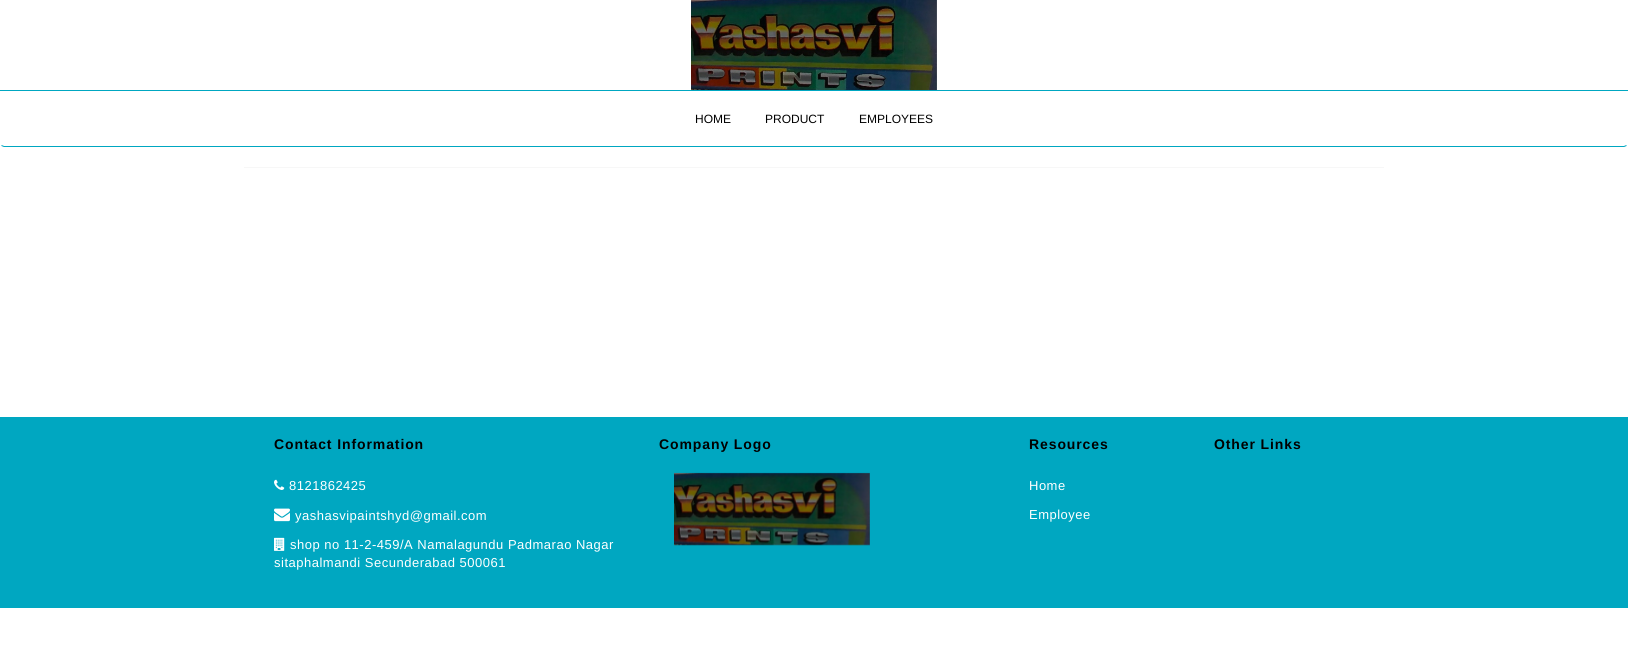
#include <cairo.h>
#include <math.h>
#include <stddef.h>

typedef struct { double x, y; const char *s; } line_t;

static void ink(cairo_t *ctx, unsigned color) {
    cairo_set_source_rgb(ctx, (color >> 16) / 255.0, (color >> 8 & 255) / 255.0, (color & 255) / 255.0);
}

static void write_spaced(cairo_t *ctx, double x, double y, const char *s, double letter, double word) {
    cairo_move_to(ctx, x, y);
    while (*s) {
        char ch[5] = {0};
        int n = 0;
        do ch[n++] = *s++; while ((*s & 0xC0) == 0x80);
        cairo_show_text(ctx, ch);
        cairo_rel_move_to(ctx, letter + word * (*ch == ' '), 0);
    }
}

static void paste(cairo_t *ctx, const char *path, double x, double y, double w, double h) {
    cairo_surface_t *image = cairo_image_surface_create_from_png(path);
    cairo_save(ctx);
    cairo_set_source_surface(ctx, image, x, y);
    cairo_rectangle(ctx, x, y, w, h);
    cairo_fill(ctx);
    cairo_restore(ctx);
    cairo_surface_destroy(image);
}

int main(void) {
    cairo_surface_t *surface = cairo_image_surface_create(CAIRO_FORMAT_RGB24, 1628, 670);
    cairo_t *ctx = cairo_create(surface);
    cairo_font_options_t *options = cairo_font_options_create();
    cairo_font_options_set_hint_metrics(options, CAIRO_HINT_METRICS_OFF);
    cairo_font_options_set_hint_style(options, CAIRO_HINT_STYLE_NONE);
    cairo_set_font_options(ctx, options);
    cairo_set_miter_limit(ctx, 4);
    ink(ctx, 0xFFFFFF);
    cairo_paint(ctx);
    ink(ctx, 0x00A7C1);
    cairo_rectangle(ctx, 0, 90, 1628, 1);
    cairo_fill(ctx);
    paste(ctx, "media/1.png", 691, 0, 246, 90);
    cairo_new_path(ctx);
    cairo_move_to(ctx, 1626.5, 145.5);
    cairo_line_to(ctx, 1624, 146.5);
    cairo_line_to(ctx, 4, 146.5);
    cairo_line_to(ctx, 1.5, 145.5);
    cairo_set_line_width(ctx, 1);
    cairo_stroke(ctx);
    cairo_select_font_face(ctx, "Liberation Sans", CAIRO_FONT_SLANT_NORMAL, CAIRO_FONT_WEIGHT_NORMAL);
    cairo_set_font_size(ctx, 12);
    ink(ctx, 0x000000);
    {
        static const line_t items[] = {
            {695, 123, "HOME"},
            {765, 123, "PRODUCT"},
            {859, 123, "EMPLOYEES"},
        };
        for (size_t i = 0; i < sizeof items / sizeof *items; i++) {
            cairo_move_to(ctx, items[i].x, items[i].y);
            cairo_show_text(ctx, items[i].s);
        }
    }
    ink(ctx, 0xF7F7F7);
    cairo_rectangle(ctx, 244, 167, 1140, 1);
    cairo_fill(ctx);
    ink(ctx, 0x00A7C1);
    cairo_rectangle(ctx, 0, 417, 1628, 191);
    cairo_fill(ctx);
    cairo_select_font_face(ctx, "Liberation Sans", CAIRO_FONT_SLANT_NORMAL, CAIRO_FONT_WEIGHT_BOLD);
    cairo_set_font_size(ctx, 14);
    ink(ctx, 0x000000);
    write_spaced(ctx, 274, 449, "Contact Information", 0.9, 0);
    paste(ctx, "media/2.png", 274, 479, 11, 11);
    cairo_select_font_face(ctx, "Liberation Sans", CAIRO_FONT_SLANT_NORMAL, CAIRO_FONT_WEIGHT_NORMAL);
    cairo_set_font_size(ctx, 13);
    ink(ctx, 0xFFFFFF);
    write_spaced(ctx, 289, 490, "8121862425", 0.5, 0);
    paste(ctx, "media/3.png", 274, 508, 16, 14);
    write_spaced(ctx, 295, 520, "yashasvipaintshyd@gmail.com", 0.5, 0);
    paste(ctx, "media/4.png", 274, 537, 11, 14);
    write_spaced(ctx, 290, 549, "shop no 11-2-459/A Namalagundu Padmarao Nagar", 0.5, 0);
    write_spaced(ctx, 274, 567, "sitaphalmandi Secunderabad 500061", 0.5, 0);
    cairo_select_font_face(ctx, "Liberation Sans", CAIRO_FONT_SLANT_NORMAL, CAIRO_FONT_WEIGHT_BOLD);
    cairo_set_font_size(ctx, 14);
    ink(ctx, 0x000000);
    write_spaced(ctx, 659, 449, "Company Logo", 0.9, 0);
    paste(ctx, "media/5.png", 674, 472, 196, 74);
    write_spaced(ctx, 1029, 449, "Resources", 0.9, 0);
    cairo_select_font_face(ctx, "Liberation Sans", CAIRO_FONT_SLANT_NORMAL, CAIRO_FONT_WEIGHT_NORMAL);
    cairo_set_font_size(ctx, 13);
    ink(ctx, 0xFFFFFF);
    write_spaced(ctx, 1029, 490, "Home", 0.5, 0);
    write_spaced(ctx, 1029, 519, "Employee", 0.5, 0);
    cairo_select_font_face(ctx, "Liberation Sans", CAIRO_FONT_SLANT_NORMAL, CAIRO_FONT_WEIGHT_BOLD);
    cairo_set_font_size(ctx, 14);
    ink(ctx, 0x000000);
    write_spaced(ctx, 1214, 449, "Other Links", 0.9, 0);
    cairo_surface_write_to_png(surface, "image.png");
    cairo_font_options_destroy(options);
    cairo_destroy(ctx);
    cairo_surface_destroy(surface);
    return 0;
}
